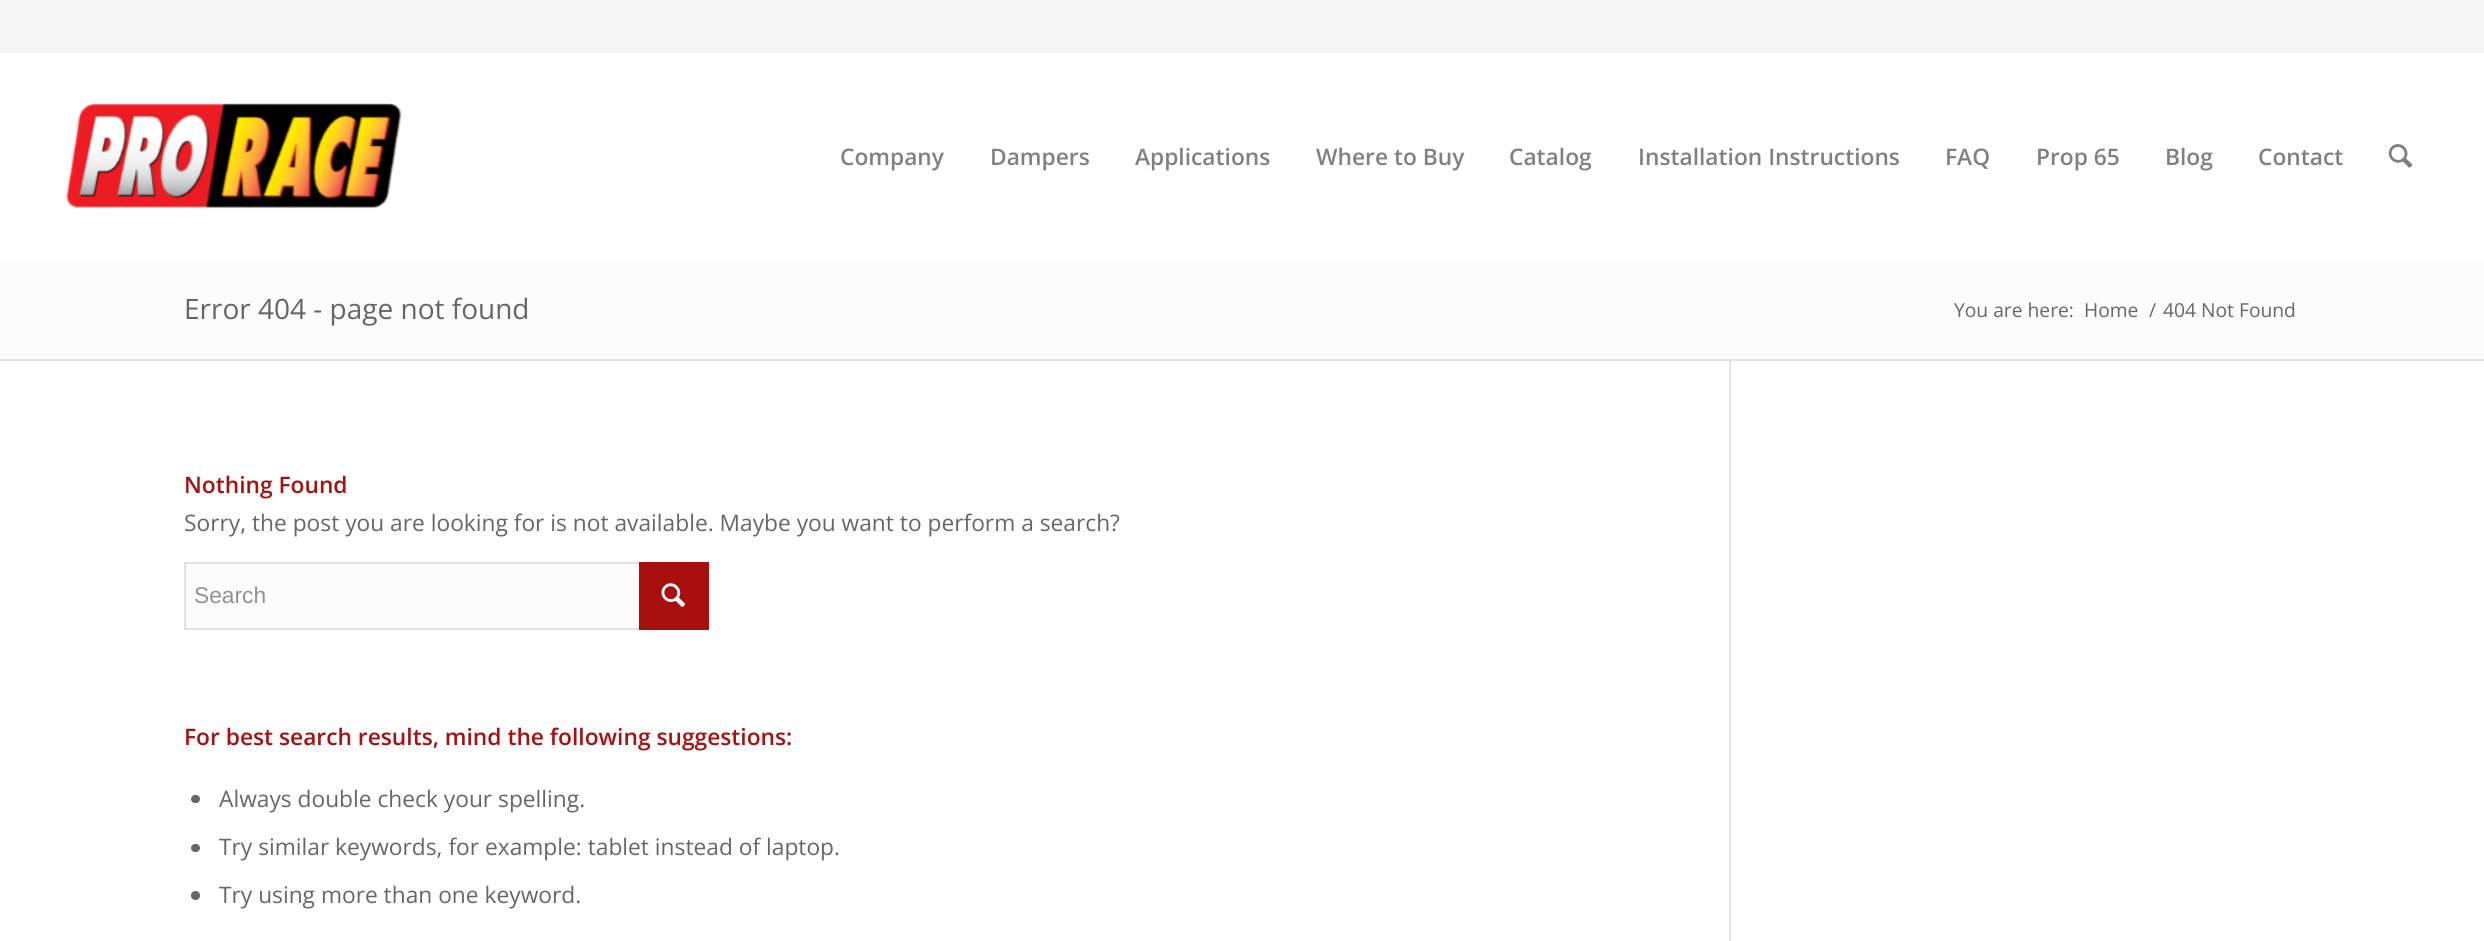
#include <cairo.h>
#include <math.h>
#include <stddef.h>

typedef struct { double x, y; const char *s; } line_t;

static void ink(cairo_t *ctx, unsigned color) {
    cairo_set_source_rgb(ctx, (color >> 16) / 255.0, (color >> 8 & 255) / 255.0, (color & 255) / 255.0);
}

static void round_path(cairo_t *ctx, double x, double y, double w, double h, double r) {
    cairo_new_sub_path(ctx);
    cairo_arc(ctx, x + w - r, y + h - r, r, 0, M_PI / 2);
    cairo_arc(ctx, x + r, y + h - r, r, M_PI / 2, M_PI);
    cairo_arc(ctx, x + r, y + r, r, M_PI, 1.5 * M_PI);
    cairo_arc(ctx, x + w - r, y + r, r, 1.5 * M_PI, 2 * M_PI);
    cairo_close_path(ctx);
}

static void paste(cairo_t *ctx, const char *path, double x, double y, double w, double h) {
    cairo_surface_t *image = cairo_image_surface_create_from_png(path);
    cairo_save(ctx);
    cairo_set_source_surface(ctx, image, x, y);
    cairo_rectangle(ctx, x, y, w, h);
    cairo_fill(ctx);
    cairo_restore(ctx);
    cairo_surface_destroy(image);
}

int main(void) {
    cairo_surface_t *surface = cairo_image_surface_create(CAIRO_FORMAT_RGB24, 2484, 941);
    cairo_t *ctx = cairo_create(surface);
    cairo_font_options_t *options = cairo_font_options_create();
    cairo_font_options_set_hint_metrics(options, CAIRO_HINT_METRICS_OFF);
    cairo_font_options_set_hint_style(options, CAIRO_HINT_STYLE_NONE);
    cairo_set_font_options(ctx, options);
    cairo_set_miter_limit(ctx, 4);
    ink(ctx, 0xFFFFFF);
    cairo_paint(ctx);
    ink(ctx, 0xF5F5F5);
    cairo_rectangle(ctx, 0, 0, 2484, 53);
    cairo_fill(ctx);
    paste(ctx, "media/1.png", 66, 103, 336, 106);
    cairo_select_font_face(ctx, "Open Sans SemiBold", CAIRO_FONT_SLANT_NORMAL, CAIRO_FONT_WEIGHT_NORMAL);
    cairo_set_font_size(ctx, 22.75);
    ink(ctx, 0x808080);
    {
        static const line_t items[] = {
            {840, 165, "Company"},
            {990, 165, "Dampers"},
            {1135, 165, "Applications"},
            {1316, 165, "Where to Buy"},
            {1509, 165, "Catalog"},
            {1638, 165, "Installation Instructions"},
            {1945, 165, "FAQ"},
            {2036, 165, "Prop 65"},
            {2165, 165, "Blog"},
            {2258, 165, "Contact"},
        };
        for (size_t i = 0; i < sizeof items / sizeof *items; i++) {
            cairo_move_to(ctx, items[i].x, items[i].y);
            cairo_show_text(ctx, items[i].s);
        }
    }
    paste(ctx, "media/2.png", 2388, 144, 25, 24);
    ink(ctx, 0xFCFCFC);
    cairo_rectangle(ctx, 0, 259, 2484, 100);
    cairo_fill(ctx);
    cairo_select_font_face(ctx, "Open Sans", CAIRO_FONT_SLANT_NORMAL, CAIRO_FONT_WEIGHT_NORMAL);
    cairo_set_font_size(ctx, 28);
    ink(ctx, 0x666666);
    cairo_move_to(ctx, 184, 319);
    cairo_show_text(ctx, "Error 404 - page not found");
    cairo_set_font_size(ctx, 19.25);
    {
        static const line_t items[] = {
            {1954, 317, "You are here:"},
            {2084, 317, "Home"},
            {2149, 317, "/"},
            {2163, 317, "404 Not Found"},
        };
        for (size_t i = 0; i < sizeof items / sizeof *items; i++) {
            cairo_move_to(ctx, items[i].x, items[i].y);
            cairo_show_text(ctx, items[i].s);
        }
    }
    ink(ctx, 0xE1E1E1);
    cairo_rectangle(ctx, 0, 359, 2484, 2);
    cairo_fill(ctx);
    cairo_rectangle(ctx, 1729, 361, 2, 580);
    cairo_fill(ctx);
    cairo_select_font_face(ctx, "Open Sans SemiBold", CAIRO_FONT_SLANT_NORMAL, CAIRO_FONT_WEIGHT_NORMAL);
    cairo_set_font_size(ctx, 22.75);
    ink(ctx, 0xA81010);
    cairo_move_to(ctx, 184, 493);
    cairo_show_text(ctx, "Nothing Found");
    cairo_select_font_face(ctx, "Open Sans", CAIRO_FONT_SLANT_NORMAL, CAIRO_FONT_WEIGHT_NORMAL);
    ink(ctx, 0x666666);
    cairo_move_to(ctx, 184, 531);
    cairo_show_text(ctx, "Sorry, the post you are looking for is not available. Maybe you want to perform a search?");
    ink(ctx, 0xFCFCFC);
    cairo_rectangle(ctx, 186, 564, 453, 64);
    cairo_fill(ctx);
    cairo_rectangle(ctx, 185, 563, 523, 66);
    ink(ctx, 0xE1E1E1);
    cairo_stroke(ctx);
    cairo_select_font_face(ctx, "Liberation Sans", CAIRO_FONT_SLANT_NORMAL, CAIRO_FONT_WEIGHT_NORMAL);
    ink(ctx, 0x919191);
    cairo_move_to(ctx, 194, 603);
    cairo_show_text(ctx, "Search");
    ink(ctx, 0xA81010);
    cairo_rectangle(ctx, 639, 562, 70, 68);
    cairo_fill(ctx);
    paste(ctx, "media/3.png", 661, 583, 24, 24);
    cairo_select_font_face(ctx, "Open Sans SemiBold", CAIRO_FONT_SLANT_NORMAL, CAIRO_FONT_WEIGHT_NORMAL);
    cairo_move_to(ctx, 184, 745);
    cairo_show_text(ctx, "For best search results, mind the following suggestions:");
    ink(ctx, 0x666666);
    round_path(ctx, 191, 795, 9, 8, 4);
    cairo_fill(ctx);
    cairo_select_font_face(ctx, "Open Sans", CAIRO_FONT_SLANT_NORMAL, CAIRO_FONT_WEIGHT_NORMAL);
    cairo_move_to(ctx, 219, 807);
    cairo_show_text(ctx, "Always double check your spelling.");
    round_path(ctx, 191, 844, 9, 8, 4);
    cairo_fill(ctx);
    cairo_move_to(ctx, 219, 855);
    cairo_show_text(ctx, "Try similar keywords, for example: tablet instead of laptop.");
    cairo_new_path(ctx);
    cairo_arc(ctx, 195.5, 895.5, 4.5, 0, 2 * M_PI);
    cairo_fill(ctx);
    cairo_move_to(ctx, 219, 903);
    cairo_show_text(ctx, "Try using more than one keyword.");
    cairo_surface_write_to_png(surface, "image.png");
    cairo_font_options_destroy(options);
    cairo_destroy(ctx);
    cairo_surface_destroy(surface);
    return 0;
}
